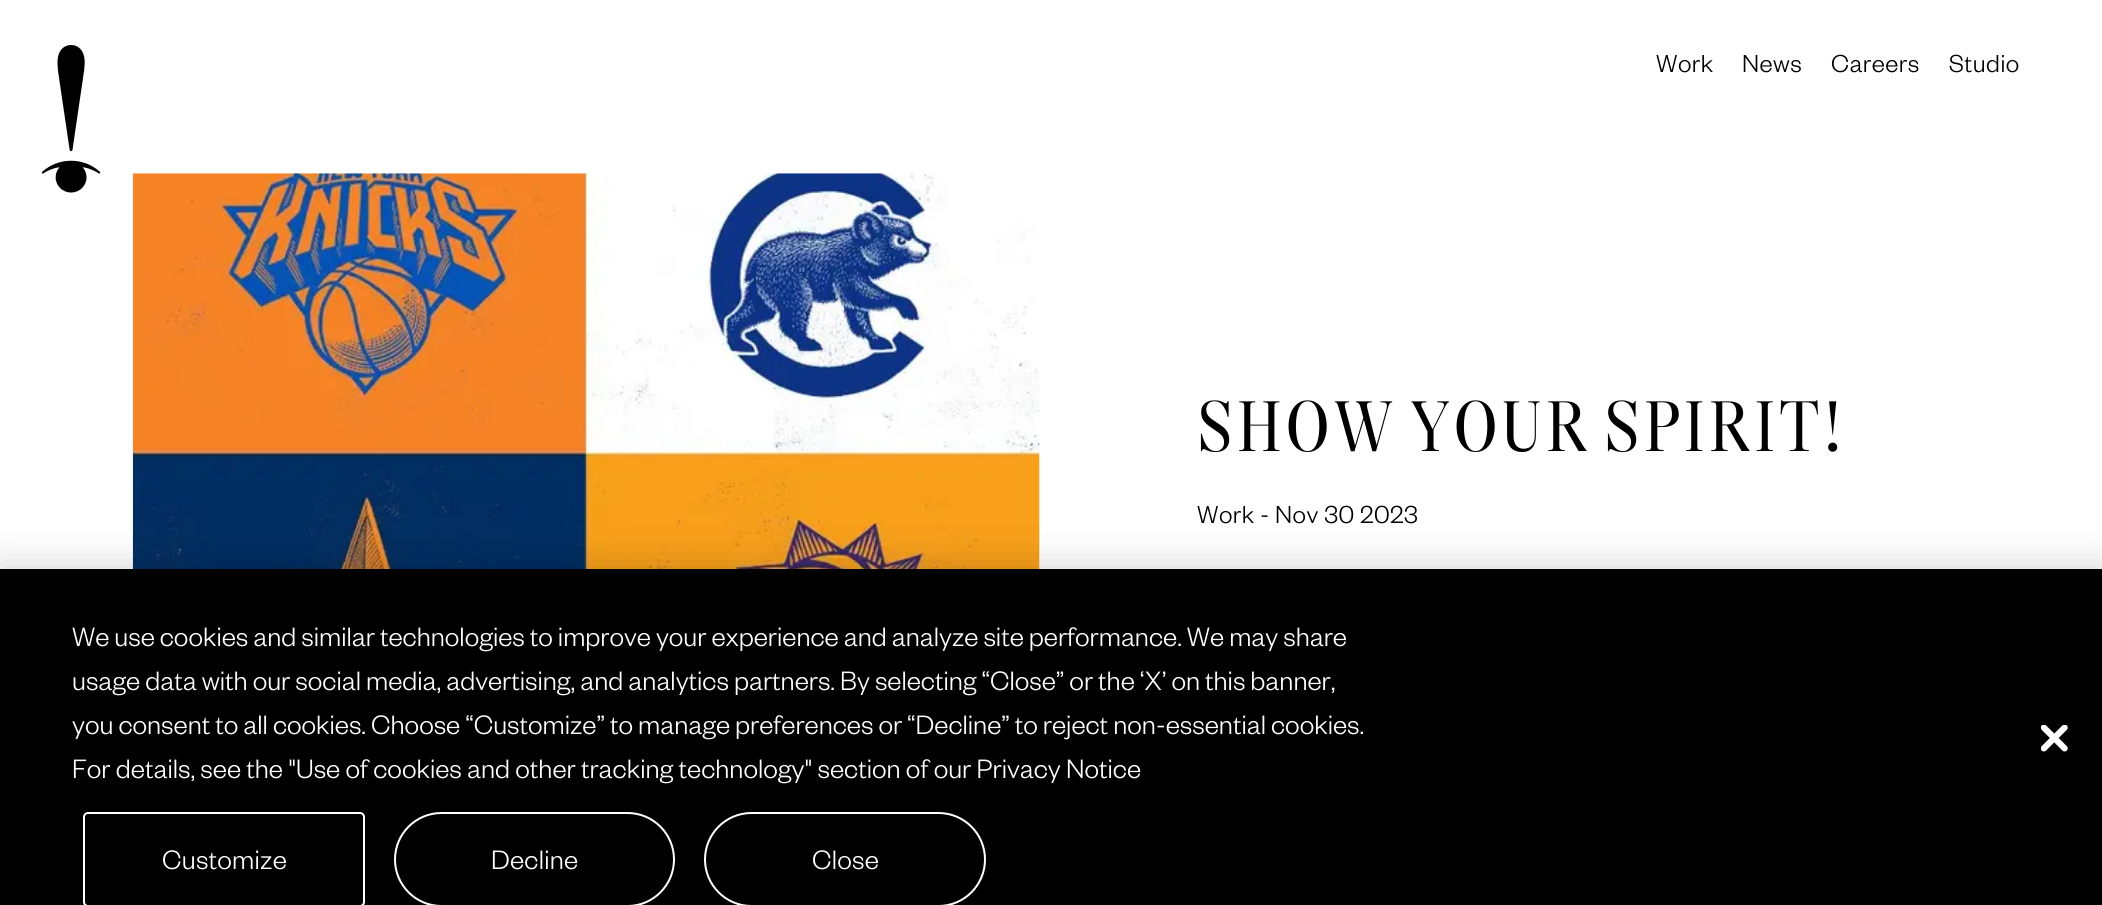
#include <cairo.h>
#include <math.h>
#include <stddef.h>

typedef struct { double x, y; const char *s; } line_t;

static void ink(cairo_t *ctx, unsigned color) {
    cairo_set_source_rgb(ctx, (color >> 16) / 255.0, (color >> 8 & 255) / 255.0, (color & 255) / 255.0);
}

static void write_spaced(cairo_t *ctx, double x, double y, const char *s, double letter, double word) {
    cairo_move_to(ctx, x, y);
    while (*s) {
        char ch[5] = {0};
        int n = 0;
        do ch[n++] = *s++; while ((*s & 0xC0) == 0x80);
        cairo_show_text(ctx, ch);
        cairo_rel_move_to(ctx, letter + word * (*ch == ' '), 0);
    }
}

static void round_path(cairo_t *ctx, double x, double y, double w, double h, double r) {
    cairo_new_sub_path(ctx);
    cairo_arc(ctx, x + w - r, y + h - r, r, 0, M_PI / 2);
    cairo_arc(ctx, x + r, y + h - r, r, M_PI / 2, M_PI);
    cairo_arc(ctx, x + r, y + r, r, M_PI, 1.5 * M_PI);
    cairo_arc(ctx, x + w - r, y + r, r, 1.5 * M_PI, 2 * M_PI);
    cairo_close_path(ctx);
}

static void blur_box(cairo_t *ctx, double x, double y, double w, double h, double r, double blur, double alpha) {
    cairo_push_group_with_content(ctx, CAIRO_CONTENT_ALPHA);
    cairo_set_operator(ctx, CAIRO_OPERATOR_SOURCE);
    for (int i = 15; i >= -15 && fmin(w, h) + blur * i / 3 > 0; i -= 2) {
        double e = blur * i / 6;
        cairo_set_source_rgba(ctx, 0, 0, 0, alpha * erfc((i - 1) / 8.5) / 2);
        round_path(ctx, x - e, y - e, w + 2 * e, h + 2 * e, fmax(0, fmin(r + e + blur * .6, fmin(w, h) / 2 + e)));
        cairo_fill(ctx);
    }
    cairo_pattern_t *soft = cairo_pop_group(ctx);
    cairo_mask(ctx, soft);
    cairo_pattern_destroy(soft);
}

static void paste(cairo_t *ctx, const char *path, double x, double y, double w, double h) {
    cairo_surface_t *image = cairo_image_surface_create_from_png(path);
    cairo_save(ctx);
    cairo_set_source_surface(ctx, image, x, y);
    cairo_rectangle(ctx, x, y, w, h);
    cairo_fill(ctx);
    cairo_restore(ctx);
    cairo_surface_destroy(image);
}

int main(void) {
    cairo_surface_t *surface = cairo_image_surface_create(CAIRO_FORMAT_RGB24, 2102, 905);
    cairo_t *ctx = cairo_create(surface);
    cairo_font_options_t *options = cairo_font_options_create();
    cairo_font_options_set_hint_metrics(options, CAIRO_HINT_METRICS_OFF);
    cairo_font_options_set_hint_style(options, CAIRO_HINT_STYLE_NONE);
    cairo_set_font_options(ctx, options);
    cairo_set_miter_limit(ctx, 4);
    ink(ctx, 0xFFFFFF);
    cairo_paint(ctx);
    paste(ctx, "media/1.png", 41, 45, 60, 148);
    cairo_select_font_face(ctx, "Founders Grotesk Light", CAIRO_FONT_SLANT_NORMAL, CAIRO_FONT_WEIGHT_NORMAL);
    cairo_set_font_size(ctx, 27);
    ink(ctx, 0x000000);
    {
        static const line_t items[] = {
            {1656, 72, "Work"},
            {1742, 72, "News"},
            {1831, 72, "Careers"},
            {1949, 72, "Studio"},
        };
        for (size_t i = 0; i < sizeof items / sizeof *items; i++) {
            write_spaced(ctx, items[i].x, items[i].y, items[i].s, 0.5, 0);
        }
    }
    paste(ctx, "media/2.png", 132, 173, 908, 396);
    cairo_select_font_face(ctx, "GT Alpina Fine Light", CAIRO_FONT_SLANT_NORMAL, CAIRO_FONT_WEIGHT_NORMAL);
    cairo_set_font_size(ctx, 73);
    write_spaced(ctx, 1197, 451, "SHOW YOUR SPIRIT!", 3.4, -3);
    cairo_select_font_face(ctx, "Founders Grotesk Light", CAIRO_FONT_SLANT_NORMAL, CAIRO_FONT_WEIGHT_NORMAL);
    cairo_set_font_size(ctx, 27);
    write_spaced(ctx, 1197, 523, "Work", 0.5, 0);
    write_spaced(ctx, 1260, 523, "- Nov 30 2023", 0.5, 0);
    ink(ctx, 0x000000);
    blur_box(ctx, 0, 569, 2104, 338, 0, 20, 0.2);
    ink(ctx, 0x000000);
    cairo_rectangle(ctx, 0, 569, 2102, 336);
    cairo_fill(ctx);
    cairo_set_font_size(ctx, 29.25);
    ink(ctx, 0xFFFFFF);
    {
        static const line_t items[] = {
            {72, 646, "We use cookies and similar technologies to improve your experience and analyze site performance. We may share"},
            {72, 690, "usage data with our social media, advertising, and analytics partners. By selecting “Close” or the ‘X’ on this banner,"},
            {72, 734, "you consent to all cookies. Choose “Customize” to manage preferences or “Decline” to reject non-essential cookies."},
        };
        for (size_t i = 0; i < sizeof items / sizeof *items; i++) {
            write_spaced(ctx, items[i].x, items[i].y, items[i].s, 0, -0.25);
        }
    }
    cairo_move_to(ctx, 72, 778);
    cairo_show_text(ctx, "For details, see the \"Use of cookies and other tracking technology\" section of our Privacy Notice");
    round_path(ctx, 84, 813, 280, 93, 4);
    cairo_stroke(ctx);
    write_spaced(ctx, 162, 869, "Customize", 0.25, 0);
    round_path(ctx, 395, 813, 279, 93, 46.5);
    cairo_stroke(ctx);
    write_spaced(ctx, 491, 869, "Decline", 0.25, 0);
    round_path(ctx, 705, 813, 280, 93, 46.5);
    cairo_stroke(ctx);
    write_spaced(ctx, 812, 869, "Close", 0.25, 0);
    paste(ctx, "media/3.png", 2041, 725, 27, 27);
    cairo_surface_write_to_png(surface, "image.png");
    cairo_font_options_destroy(options);
    cairo_destroy(ctx);
    cairo_surface_destroy(surface);
    return 0;
}
